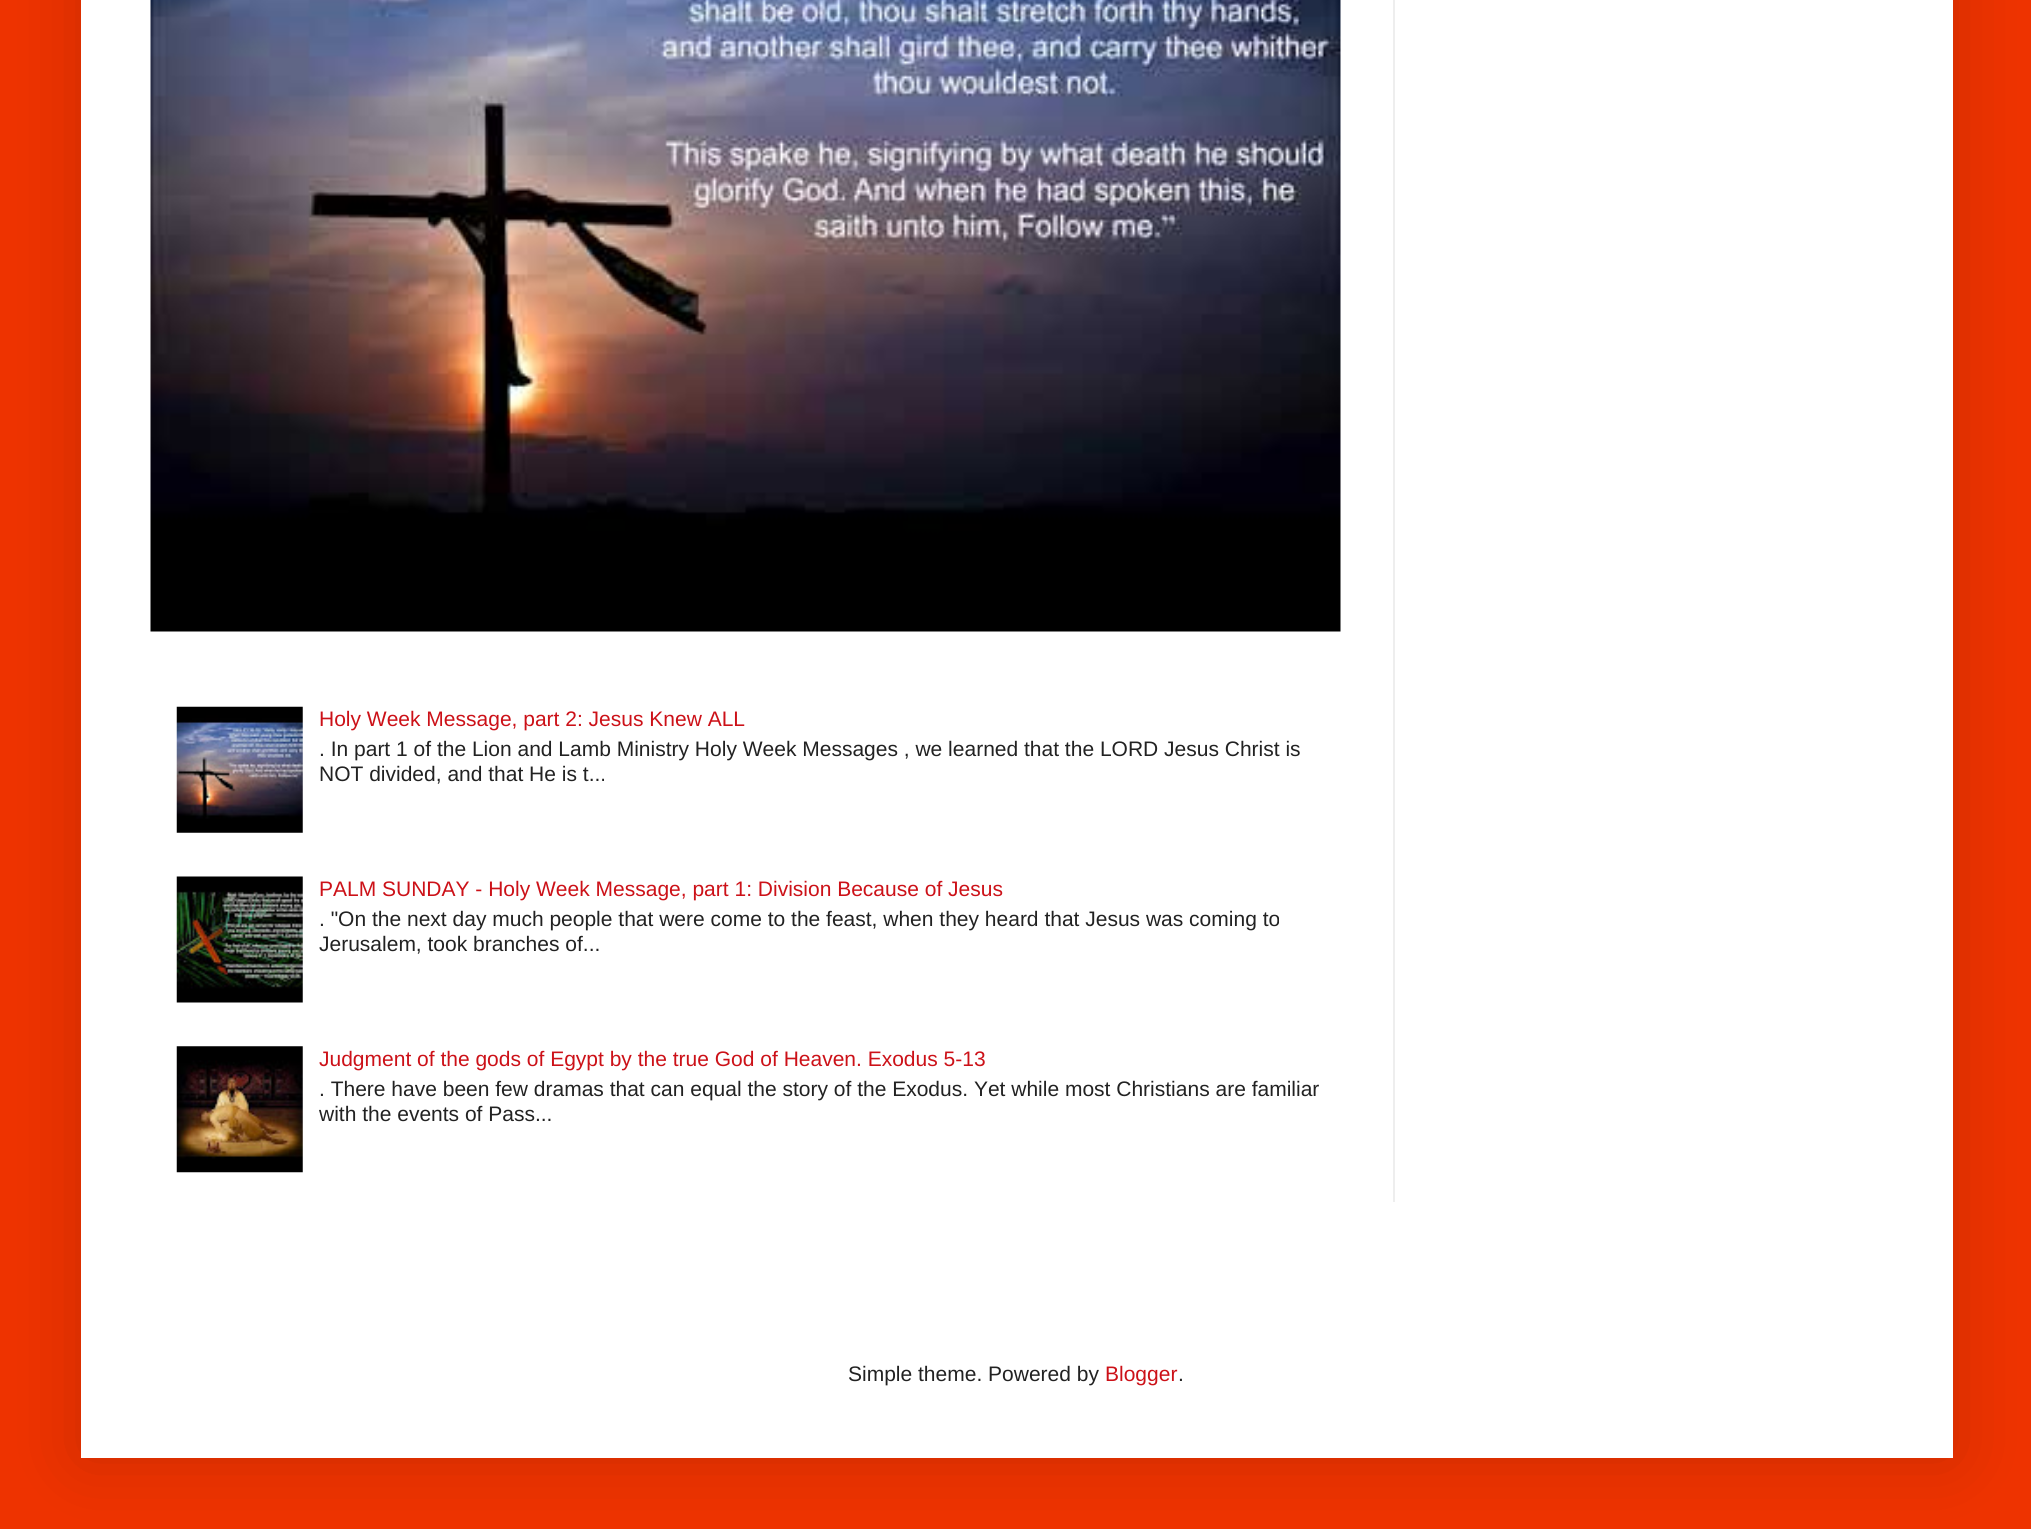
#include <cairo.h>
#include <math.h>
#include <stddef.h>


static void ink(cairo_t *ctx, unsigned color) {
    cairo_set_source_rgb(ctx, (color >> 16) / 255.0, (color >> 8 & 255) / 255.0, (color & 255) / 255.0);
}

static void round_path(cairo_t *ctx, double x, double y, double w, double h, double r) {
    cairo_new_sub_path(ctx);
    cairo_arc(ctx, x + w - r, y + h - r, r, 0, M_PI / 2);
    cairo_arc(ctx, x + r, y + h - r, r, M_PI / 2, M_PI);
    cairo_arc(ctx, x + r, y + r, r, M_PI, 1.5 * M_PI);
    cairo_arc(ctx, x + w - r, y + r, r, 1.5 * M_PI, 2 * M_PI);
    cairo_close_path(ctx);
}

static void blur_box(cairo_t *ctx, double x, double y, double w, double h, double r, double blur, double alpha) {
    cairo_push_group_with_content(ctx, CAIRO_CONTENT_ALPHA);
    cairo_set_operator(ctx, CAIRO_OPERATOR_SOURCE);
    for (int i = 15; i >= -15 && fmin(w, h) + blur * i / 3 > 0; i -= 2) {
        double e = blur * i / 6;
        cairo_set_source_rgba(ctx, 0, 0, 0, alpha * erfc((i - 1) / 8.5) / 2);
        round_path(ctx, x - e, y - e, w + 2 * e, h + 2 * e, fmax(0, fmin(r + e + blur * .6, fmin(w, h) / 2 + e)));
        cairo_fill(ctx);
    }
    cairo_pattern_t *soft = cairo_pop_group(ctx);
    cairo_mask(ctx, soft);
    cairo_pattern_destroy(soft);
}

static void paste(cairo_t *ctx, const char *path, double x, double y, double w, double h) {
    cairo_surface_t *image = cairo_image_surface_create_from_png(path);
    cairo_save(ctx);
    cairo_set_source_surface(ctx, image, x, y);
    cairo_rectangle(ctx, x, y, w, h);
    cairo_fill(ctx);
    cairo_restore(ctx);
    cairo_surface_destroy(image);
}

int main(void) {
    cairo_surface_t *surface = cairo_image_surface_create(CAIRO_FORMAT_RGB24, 2031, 1529);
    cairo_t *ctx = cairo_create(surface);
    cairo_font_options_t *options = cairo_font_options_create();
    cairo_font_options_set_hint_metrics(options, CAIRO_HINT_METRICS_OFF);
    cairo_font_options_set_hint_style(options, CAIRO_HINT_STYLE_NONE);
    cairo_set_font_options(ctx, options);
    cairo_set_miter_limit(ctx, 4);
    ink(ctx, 0xEE3300);
    cairo_paint(ctx);
    ink(ctx, 0x000000);
    blur_box(ctx, 81, -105, 1872, 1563, 0, 35, 0.15);
    ink(ctx, 0xFFFFFF);
    cairo_rectangle(ctx, 81, 0, 1872, 1458);
    cairo_fill(ctx);
    paste(ctx, "media/1.png", 150, 0, 1191, 632);
    paste(ctx, "media/2.png", 176, 706, 127, 127);
    cairo_select_font_face(ctx, "Liberation Sans", CAIRO_FONT_SLANT_NORMAL, CAIRO_FONT_WEIGHT_NORMAL);
    cairo_set_font_size(ctx, 21);
    ink(ctx, 0xCC1118);
    cairo_move_to(ctx, 319, 726);
    cairo_show_text(ctx, "Holy Week Message, part 2: Jesus Knew ALL");
    ink(ctx, 0x222222);
    cairo_move_to(ctx, 319, 756);
    cairo_show_text(ctx, ". In part 1 of the Lion and Lamb Ministry Holy Week Messages , we learned that the LORD Jesus Christ is");
    cairo_move_to(ctx, 319, 781);
    cairo_show_text(ctx, "NOT divided, and that He is t...");
    paste(ctx, "media/3.png", 176, 876, 127, 127);
    ink(ctx, 0xCC1118);
    cairo_move_to(ctx, 319, 896);
    cairo_show_text(ctx, "PALM SUNDAY - Holy Week Message, part 1: Division Because of Jesus");
    ink(ctx, 0x222222);
    cairo_move_to(ctx, 319, 926);
    cairo_show_text(ctx, ". \"On the next day much people that were come to the feast, when they heard that Jesus was coming to");
    cairo_move_to(ctx, 319, 951);
    cairo_show_text(ctx, "Jerusalem, took branches of...");
    paste(ctx, "media/4.png", 176, 1046, 127, 127);
    ink(ctx, 0xCC1118);
    cairo_move_to(ctx, 319, 1066);
    cairo_show_text(ctx, "Judgment of the gods of Egypt by the true God of Heaven. Exodus 5-13");
    ink(ctx, 0x222222);
    cairo_move_to(ctx, 319, 1096);
    cairo_show_text(ctx, ". There have been few dramas that can equal the story of the Exodus. Yet while most Christians are familiar");
    cairo_move_to(ctx, 319, 1121);
    cairo_show_text(ctx, "with the events of Pass...");
    ink(ctx, 0xEEEEEE);
    cairo_rectangle(ctx, 1393, 0, 2, 1202);
    cairo_fill(ctx);
    ink(ctx, 0x222222);
    cairo_move_to(ctx, 848, 1381);
    cairo_show_text(ctx, "Simple theme. Powered by");
    ink(ctx, 0xCC1118);
    cairo_move_to(ctx, 1105, 1381);
    cairo_show_text(ctx, "Blogger");
    ink(ctx, 0x222222);
    cairo_move_to(ctx, 1178, 1381);
    cairo_show_text(ctx, ".");
    cairo_surface_write_to_png(surface, "image.png");
    cairo_font_options_destroy(options);
    cairo_destroy(ctx);
    cairo_surface_destroy(surface);
    return 0;
}
